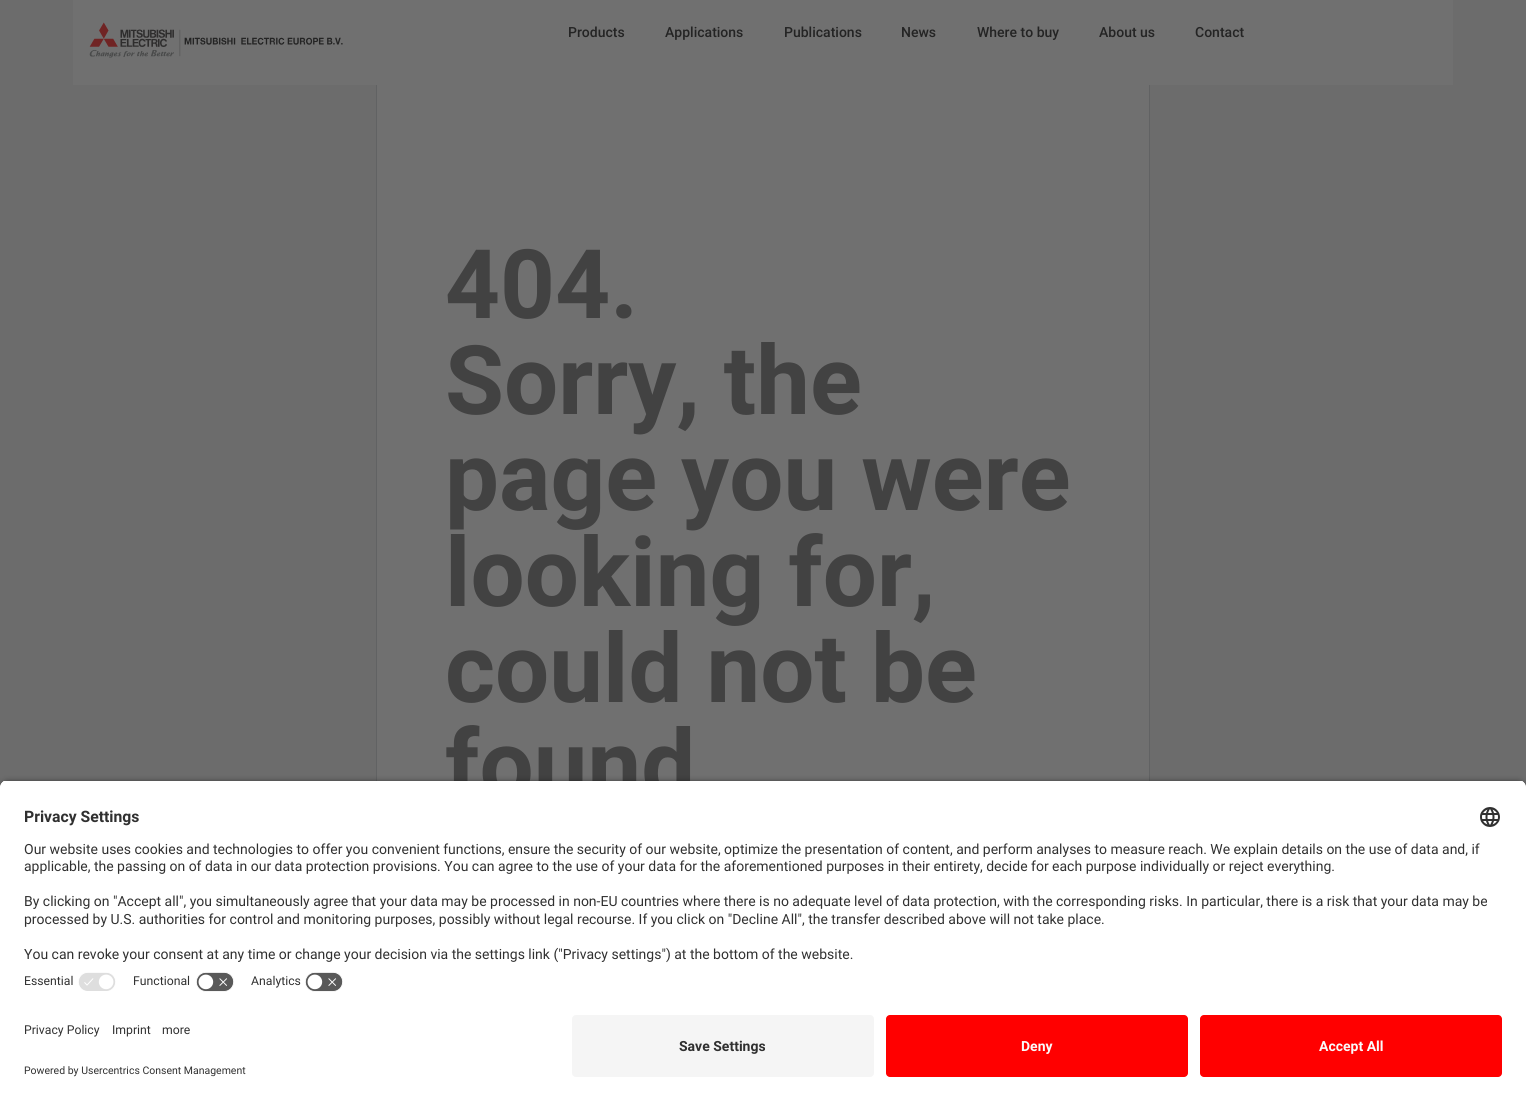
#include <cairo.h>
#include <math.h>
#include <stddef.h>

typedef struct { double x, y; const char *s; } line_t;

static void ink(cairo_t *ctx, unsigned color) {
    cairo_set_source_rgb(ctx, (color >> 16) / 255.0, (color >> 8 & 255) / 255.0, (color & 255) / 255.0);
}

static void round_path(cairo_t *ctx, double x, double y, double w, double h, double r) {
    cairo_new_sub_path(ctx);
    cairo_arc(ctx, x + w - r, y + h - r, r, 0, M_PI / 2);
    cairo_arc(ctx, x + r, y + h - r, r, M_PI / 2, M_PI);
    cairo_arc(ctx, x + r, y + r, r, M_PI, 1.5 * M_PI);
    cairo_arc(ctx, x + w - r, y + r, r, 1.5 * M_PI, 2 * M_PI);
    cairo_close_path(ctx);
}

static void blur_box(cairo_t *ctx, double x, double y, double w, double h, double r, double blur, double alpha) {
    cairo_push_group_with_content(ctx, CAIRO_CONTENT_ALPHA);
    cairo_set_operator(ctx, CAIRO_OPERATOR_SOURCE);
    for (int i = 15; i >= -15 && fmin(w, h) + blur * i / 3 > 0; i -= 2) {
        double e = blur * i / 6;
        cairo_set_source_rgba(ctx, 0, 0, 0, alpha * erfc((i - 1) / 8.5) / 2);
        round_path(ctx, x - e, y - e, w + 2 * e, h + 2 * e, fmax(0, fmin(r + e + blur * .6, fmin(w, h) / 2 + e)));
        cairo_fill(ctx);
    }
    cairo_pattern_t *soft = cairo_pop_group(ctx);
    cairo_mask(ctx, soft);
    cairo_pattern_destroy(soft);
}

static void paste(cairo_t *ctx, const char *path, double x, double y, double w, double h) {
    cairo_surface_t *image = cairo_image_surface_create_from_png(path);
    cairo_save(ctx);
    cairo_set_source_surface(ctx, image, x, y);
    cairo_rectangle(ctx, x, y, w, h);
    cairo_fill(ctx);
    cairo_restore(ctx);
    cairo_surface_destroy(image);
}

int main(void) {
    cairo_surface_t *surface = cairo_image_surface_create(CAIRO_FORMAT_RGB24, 1526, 1101);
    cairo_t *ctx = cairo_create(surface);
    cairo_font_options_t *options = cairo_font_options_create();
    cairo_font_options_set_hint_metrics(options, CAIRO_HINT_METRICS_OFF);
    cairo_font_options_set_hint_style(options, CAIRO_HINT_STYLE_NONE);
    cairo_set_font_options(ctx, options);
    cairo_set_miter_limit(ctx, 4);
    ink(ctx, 0x6C6C6C);
    cairo_paint(ctx);
    ink(ctx, 0x707070);
    cairo_rectangle(ctx, 377, 85, 772, 696);
    cairo_fill(ctx);
    cairo_rectangle(ctx, 376.5, -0.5, 773, 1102);
    ink(ctx, 0x616263);
    cairo_set_line_width(ctx, 1);
    cairo_stroke(ctx);
    ink(ctx, 0x707070);
    cairo_rectangle(ctx, 73, 0, 1380, 85);
    cairo_fill(ctx);
    paste(ctx, "media/1.png", 89, 22, 254, 36);
    cairo_select_font_face(ctx, "Roboto Medium", CAIRO_FONT_SLANT_NORMAL, CAIRO_FONT_WEIGHT_NORMAL);
    cairo_set_font_size(ctx, 14);
    ink(ctx, 0x242424);
    {
        static const line_t items[] = {
            {568, 37, "Products"},
            {665, 37, "Applications"},
            {784, 37, "Publications"},
            {901, 37, "News"},
            {977, 37, "Where to buy"},
            {1099, 37, "About us"},
            {1195, 37, "Contact"},
        };
        for (size_t i = 0; i < sizeof items / sizeof *items; i++) {
            cairo_move_to(ctx, items[i].x, items[i].y);
            cairo_show_text(ctx, items[i].s);
        }
    }
    cairo_select_font_face(ctx, "Roboto", CAIRO_FONT_SLANT_NORMAL, CAIRO_FONT_WEIGHT_BOLD);
    cairo_set_font_size(ctx, 96);
    ink(ctx, 0x424242);
    {
        static const line_t items[] = {
            {445, 318, "404."},
            {445, 414, "Sorry, the"},
            {445, 510, "page you were"},
            {445, 606, "looking for,"},
            {445, 702, "could not be"},
            {445, 798, "found"},
        };
        for (size_t i = 0; i < sizeof items / sizeof *items; i++) {
            cairo_move_to(ctx, items[i].x, items[i].y);
            cairo_show_text(ctx, items[i].s);
        }
    }
    ink(ctx, 0x000000);
    blur_box(ctx, 0, 783, 1526, 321, 8, 3.5, 0.8);
    cairo_save(ctx);
    cairo_new_path(ctx);
    cairo_move_to(ctx, 8, 780);
    cairo_line_to(ctx, 1518, 780);
    cairo_curve_to(ctx, 1522.5, 780, 1526, 783.5, 1526, 788);
    cairo_line_to(ctx, 1526, 1007);
    cairo_line_to(ctx, 0, 1007);
    cairo_line_to(ctx, 0, 788);
    cairo_curve_to(ctx, 0, 783.5, 3.5, 780, 8, 780);
    cairo_close_path(ctx);
    cairo_clip(ctx);
    ink(ctx, 0xFFFFFF);
    cairo_rectangle(ctx, 0, 781, 1526, 226);
    cairo_fill(ctx);
    cairo_rectangle(ctx, 0, 781, 1526, 186);
    cairo_fill(ctx);
    cairo_restore(ctx);
    cairo_set_font_size(ctx, 15.75);
    ink(ctx, 0x303030);
    cairo_move_to(ctx, 24, 822);
    cairo_show_text(ctx, "Privacy Settings");
    paste(ctx, "media/2.png", 1480, 807, 20, 20);
    cairo_select_font_face(ctx, "Roboto", CAIRO_FONT_SLANT_NORMAL, CAIRO_FONT_WEIGHT_NORMAL);
    cairo_set_font_size(ctx, 14);
    {
        static const line_t items[] = {
            {24, 854, "Our website uses cookies and technologies to offer you convenient functions, ensure the security of our website, optimize the presentation of content, and perform analyses to measure reach. We explain details on the use of data and, if"},
            {24, 871, "applicable, the passing on of data in our data protection provisions. You can agree to the use of your data for the aforementioned purposes in their entirety, decide for each purpose individually or reject everything."},
            {24, 906, "By clicking on \"Accept all\", you simultaneously agree that your data may be processed in non-EU countries where there is no adequate level of data protection, with the corresponding risks. In particular, there is a risk that your data may be"},
            {24, 924, "processed by U.S. authorities for control and monitoring purposes, possibly without legal recourse. If you click on \"Decline All\", the transfer described above will not take place."},
            {24, 959, "You can revoke your consent at any time or change your decision via the settings link (\"Privacy settings\") at the bottom of the website."},
        };
        for (size_t i = 0; i < sizeof items / sizeof *items; i++) {
            cairo_move_to(ctx, items[i].x, items[i].y);
            cairo_show_text(ctx, items[i].s);
        }
    }
    cairo_set_font_size(ctx, 12.25);
    cairo_move_to(ctx, 24, 985);
    cairo_show_text(ctx, "Essential");
    paste(ctx, "media/3.png", 78, 972, 38, 19);
    cairo_move_to(ctx, 133, 985);
    cairo_show_text(ctx, "Functional");
    paste(ctx, "media/4.png", 196, 972, 38, 20);
    cairo_move_to(ctx, 251, 985);
    cairo_show_text(ctx, "Analytics");
    paste(ctx, "media/4.png", 305, 972, 38, 20);
    ink(ctx, 0xFFFFFF);
    cairo_rectangle(ctx, 0, 1007, 1526, 94);
    cairo_fill(ctx);
    ink(ctx, 0x303030);
    {
        static const line_t items[] = {
            {24, 1034, "Privacy Policy"},
            {112, 1034, "Imprint"},
            {162, 1034, "more"},
        };
        for (size_t i = 0; i < sizeof items / sizeof *items; i++) {
            cairo_move_to(ctx, items[i].x, items[i].y);
            cairo_show_text(ctx, items[i].s);
        }
    }
    cairo_set_font_size(ctx, 10.5);
    cairo_move_to(ctx, 24, 1074);
    cairo_show_text(ctx, "Powered by Usercentrics Consent Management");
    ink(ctx, 0xF5F5F5);
    round_path(ctx, 572, 1015, 302, 62, 4);
    cairo_fill(ctx);
    cairo_select_font_face(ctx, "Roboto", CAIRO_FONT_SLANT_NORMAL, CAIRO_FONT_WEIGHT_BOLD);
    cairo_set_font_size(ctx, 14);
    ink(ctx, 0x303030);
    cairo_move_to(ctx, 679, 1051);
    cairo_show_text(ctx, "Save Settings");
    ink(ctx, 0xFF0000);
    round_path(ctx, 886, 1015, 302, 62, 4);
    cairo_fill(ctx);
    ink(ctx, 0xFAFAFA);
    cairo_move_to(ctx, 1021, 1051);
    cairo_show_text(ctx, "Deny");
    ink(ctx, 0xFF0000);
    round_path(ctx, 1200, 1015, 302, 62, 4);
    cairo_fill(ctx);
    ink(ctx, 0xFAFAFA);
    cairo_move_to(ctx, 1319, 1051);
    cairo_show_text(ctx, "Accept All");
    cairo_surface_write_to_png(surface, "image.png");
    cairo_font_options_destroy(options);
    cairo_destroy(ctx);
    cairo_surface_destroy(surface);
    return 0;
}
